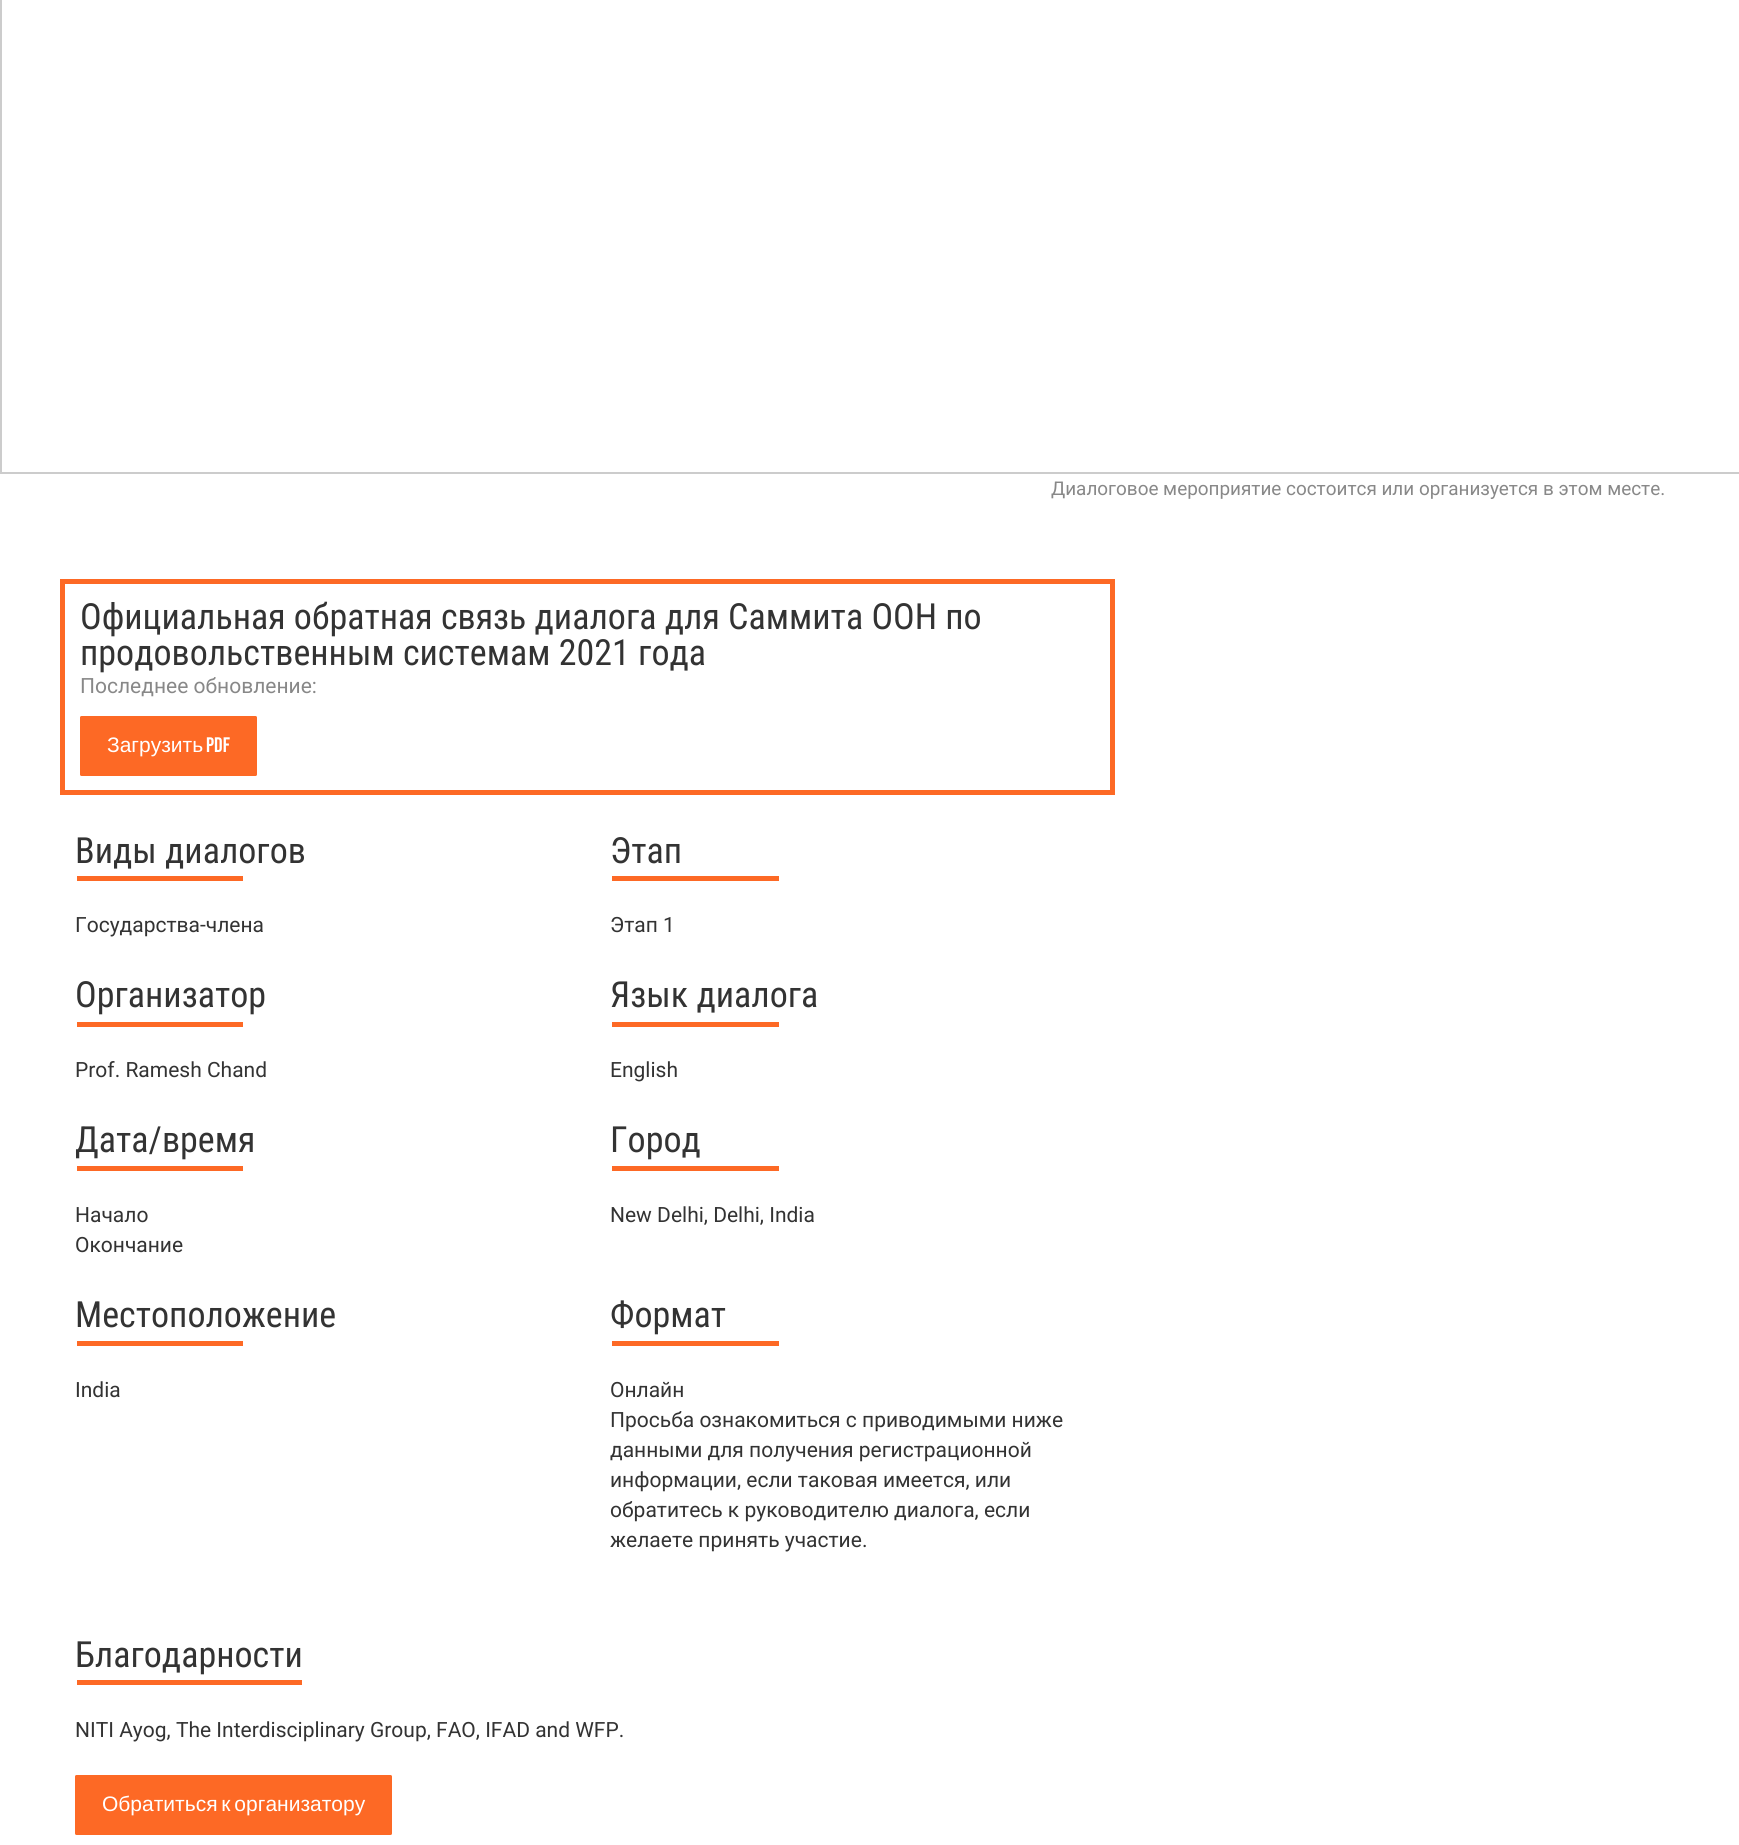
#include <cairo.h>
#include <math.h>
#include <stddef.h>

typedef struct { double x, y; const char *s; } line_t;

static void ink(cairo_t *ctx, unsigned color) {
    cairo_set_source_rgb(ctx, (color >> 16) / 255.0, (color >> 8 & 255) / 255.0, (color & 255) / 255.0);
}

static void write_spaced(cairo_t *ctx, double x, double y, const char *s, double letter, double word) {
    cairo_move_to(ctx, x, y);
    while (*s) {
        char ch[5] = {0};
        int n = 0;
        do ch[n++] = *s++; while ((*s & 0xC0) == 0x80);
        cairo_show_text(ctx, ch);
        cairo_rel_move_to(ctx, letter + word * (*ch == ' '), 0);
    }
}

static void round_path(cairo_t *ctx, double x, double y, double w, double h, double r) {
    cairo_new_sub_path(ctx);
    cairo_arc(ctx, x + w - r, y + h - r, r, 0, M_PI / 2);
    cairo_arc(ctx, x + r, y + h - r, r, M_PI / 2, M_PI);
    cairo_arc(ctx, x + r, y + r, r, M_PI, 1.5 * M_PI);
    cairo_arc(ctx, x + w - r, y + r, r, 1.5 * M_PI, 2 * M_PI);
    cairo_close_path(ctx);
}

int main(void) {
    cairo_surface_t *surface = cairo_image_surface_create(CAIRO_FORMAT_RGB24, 1739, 1845);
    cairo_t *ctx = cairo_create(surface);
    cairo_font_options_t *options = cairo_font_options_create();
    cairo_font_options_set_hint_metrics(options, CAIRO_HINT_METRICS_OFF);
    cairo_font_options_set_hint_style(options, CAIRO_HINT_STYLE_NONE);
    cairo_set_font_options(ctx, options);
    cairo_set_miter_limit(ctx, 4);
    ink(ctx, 0xFFFFFF);
    cairo_paint(ctx);
    cairo_rectangle(ctx, 1, -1, 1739, 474);
    ink(ctx, 0xCCCCCC);
    cairo_stroke(ctx);
    cairo_select_font_face(ctx, "Roboto", CAIRO_FONT_SLANT_NORMAL, CAIRO_FONT_WEIGHT_NORMAL);
    cairo_set_font_size(ctx, 18.9);
    ink(ctx, 0x888888);
    cairo_move_to(ctx, 1051, 495);
    cairo_show_text(ctx, "Диалоговое мероприятие состоится или организуется в этом месте.");
    cairo_rectangle(ctx, 62.5, 581.5, 1050, 211);
    ink(ctx, 0xFD6925);
    cairo_set_line_width(ctx, 5);
    cairo_stroke(ctx);
    cairo_select_font_face(ctx, "Roboto Condensed", CAIRO_FONT_SLANT_NORMAL, CAIRO_FONT_WEIGHT_NORMAL);
    cairo_set_font_size(ctx, 36);
    ink(ctx, 0x333333);
    cairo_move_to(ctx, 80, 629);
    cairo_show_text(ctx, "Официальная обратная связь диалога для Саммита ООН по");
    cairo_move_to(ctx, 80, 665);
    cairo_show_text(ctx, "продовольственным системам 2021 года");
    cairo_select_font_face(ctx, "Roboto", CAIRO_FONT_SLANT_NORMAL, CAIRO_FONT_WEIGHT_NORMAL);
    cairo_set_font_size(ctx, 21);
    ink(ctx, 0x888888);
    cairo_move_to(ctx, 80, 693);
    cairo_show_text(ctx, "Последнее обновление:");
    ink(ctx, 0xFD6925);
    round_path(ctx, 80, 716, 177, 60, 1.5);
    cairo_fill(ctx);
    cairo_select_font_face(ctx, "Liberation Sans", CAIRO_FONT_SLANT_NORMAL, CAIRO_FONT_WEIGHT_NORMAL);
    ink(ctx, 0xFFFFFF);
    cairo_move_to(ctx, 107, 752);
    cairo_show_text(ctx, "Загрузить");
    cairo_select_font_face(ctx, "Bebas Neue", CAIRO_FONT_SLANT_NORMAL, CAIRO_FONT_WEIGHT_NORMAL);
    cairo_move_to(ctx, 206, 752);
    cairo_show_text(ctx, "PDF");
    cairo_select_font_face(ctx, "Roboto Condensed", CAIRO_FONT_SLANT_NORMAL, CAIRO_FONT_WEIGHT_NORMAL);
    cairo_set_font_size(ctx, 36);
    ink(ctx, 0x333333);
    cairo_move_to(ctx, 75, 863);
    cairo_show_text(ctx, "Виды диалогов");
    ink(ctx, 0xFD6925);
    cairo_rectangle(ctx, 77, 876, 166, 5);
    cairo_fill(ctx);
    cairo_select_font_face(ctx, "Roboto", CAIRO_FONT_SLANT_NORMAL, CAIRO_FONT_WEIGHT_NORMAL);
    cairo_set_font_size(ctx, 21);
    ink(ctx, 0x333333);
    cairo_move_to(ctx, 75, 932);
    cairo_show_text(ctx, "Государства-члена");
    cairo_select_font_face(ctx, "Roboto Condensed", CAIRO_FONT_SLANT_NORMAL, CAIRO_FONT_WEIGHT_NORMAL);
    cairo_set_font_size(ctx, 36);
    cairo_move_to(ctx, 610, 863);
    cairo_show_text(ctx, "Этап");
    ink(ctx, 0xFD6925);
    cairo_rectangle(ctx, 612, 876, 167, 5);
    cairo_fill(ctx);
    cairo_select_font_face(ctx, "Roboto", CAIRO_FONT_SLANT_NORMAL, CAIRO_FONT_WEIGHT_NORMAL);
    cairo_set_font_size(ctx, 21);
    ink(ctx, 0x333333);
    cairo_move_to(ctx, 610, 932);
    cairo_show_text(ctx, "Этап 1");
    cairo_select_font_face(ctx, "Roboto Condensed", CAIRO_FONT_SLANT_NORMAL, CAIRO_FONT_WEIGHT_NORMAL);
    cairo_set_font_size(ctx, 36);
    cairo_move_to(ctx, 75, 1007);
    cairo_show_text(ctx, "Организатор");
    ink(ctx, 0xFD6925);
    cairo_rectangle(ctx, 77, 1022, 166, 5);
    cairo_fill(ctx);
    cairo_select_font_face(ctx, "Roboto", CAIRO_FONT_SLANT_NORMAL, CAIRO_FONT_WEIGHT_NORMAL);
    cairo_set_font_size(ctx, 21);
    ink(ctx, 0x333333);
    cairo_move_to(ctx, 75, 1077);
    cairo_show_text(ctx, "Prof. Ramesh Chand");
    cairo_select_font_face(ctx, "Roboto Condensed", CAIRO_FONT_SLANT_NORMAL, CAIRO_FONT_WEIGHT_NORMAL);
    cairo_set_font_size(ctx, 36);
    cairo_move_to(ctx, 610, 1007);
    cairo_show_text(ctx, "Язык диалога");
    ink(ctx, 0xFD6925);
    cairo_rectangle(ctx, 612, 1022, 167, 5);
    cairo_fill(ctx);
    cairo_select_font_face(ctx, "Roboto", CAIRO_FONT_SLANT_NORMAL, CAIRO_FONT_WEIGHT_NORMAL);
    cairo_set_font_size(ctx, 21);
    ink(ctx, 0x333333);
    cairo_move_to(ctx, 610, 1077);
    cairo_show_text(ctx, "English");
    cairo_select_font_face(ctx, "Roboto Condensed", CAIRO_FONT_SLANT_NORMAL, CAIRO_FONT_WEIGHT_NORMAL);
    cairo_set_font_size(ctx, 36);
    cairo_move_to(ctx, 75, 1152);
    cairo_show_text(ctx, "Дата/время");
    ink(ctx, 0xFD6925);
    cairo_rectangle(ctx, 77, 1166, 166, 5);
    cairo_fill(ctx);
    cairo_select_font_face(ctx, "Roboto", CAIRO_FONT_SLANT_NORMAL, CAIRO_FONT_WEIGHT_NORMAL);
    cairo_set_font_size(ctx, 21);
    ink(ctx, 0x333333);
    cairo_move_to(ctx, 75, 1222);
    cairo_show_text(ctx, "Начало");
    cairo_move_to(ctx, 75, 1252);
    cairo_show_text(ctx, "Окончание");
    cairo_select_font_face(ctx, "Roboto Condensed", CAIRO_FONT_SLANT_NORMAL, CAIRO_FONT_WEIGHT_NORMAL);
    cairo_set_font_size(ctx, 36);
    cairo_move_to(ctx, 610, 1152);
    cairo_show_text(ctx, "Город");
    ink(ctx, 0xFD6925);
    cairo_rectangle(ctx, 612, 1166, 167, 5);
    cairo_fill(ctx);
    cairo_select_font_face(ctx, "Roboto", CAIRO_FONT_SLANT_NORMAL, CAIRO_FONT_WEIGHT_NORMAL);
    cairo_set_font_size(ctx, 21);
    ink(ctx, 0x333333);
    cairo_move_to(ctx, 610, 1222);
    cairo_show_text(ctx, "New Delhi, Delhi, India");
    cairo_select_font_face(ctx, "Roboto Condensed", CAIRO_FONT_SLANT_NORMAL, CAIRO_FONT_WEIGHT_NORMAL);
    cairo_set_font_size(ctx, 36);
    cairo_move_to(ctx, 75, 1327);
    cairo_show_text(ctx, "Местоположение");
    ink(ctx, 0xFD6925);
    cairo_rectangle(ctx, 77, 1341, 166, 5);
    cairo_fill(ctx);
    cairo_select_font_face(ctx, "Roboto", CAIRO_FONT_SLANT_NORMAL, CAIRO_FONT_WEIGHT_NORMAL);
    cairo_set_font_size(ctx, 21);
    ink(ctx, 0x333333);
    cairo_move_to(ctx, 75, 1397);
    cairo_show_text(ctx, "India");
    cairo_select_font_face(ctx, "Roboto Condensed", CAIRO_FONT_SLANT_NORMAL, CAIRO_FONT_WEIGHT_NORMAL);
    cairo_set_font_size(ctx, 36);
    cairo_move_to(ctx, 610, 1327);
    cairo_show_text(ctx, "Формат");
    ink(ctx, 0xFD6925);
    cairo_rectangle(ctx, 612, 1341, 167, 5);
    cairo_fill(ctx);
    cairo_select_font_face(ctx, "Roboto", CAIRO_FONT_SLANT_NORMAL, CAIRO_FONT_WEIGHT_NORMAL);
    cairo_set_font_size(ctx, 21);
    ink(ctx, 0x333333);
    {
        static const line_t items[] = {
            {610, 1397, "Онлайн"},
            {610, 1427, "Просьба ознакомиться с приводимыми ниже"},
            {610, 1457, "данными для получения регистрационной"},
            {610, 1487, "информации, если таковая имеется, или"},
            {610, 1517, "обратитесь к руководителю диалога, если"},
            {610, 1547, "желаете принять участие."},
        };
        for (size_t i = 0; i < sizeof items / sizeof *items; i++) {
            cairo_move_to(ctx, items[i].x, items[i].y);
            cairo_show_text(ctx, items[i].s);
        }
    }
    cairo_select_font_face(ctx, "Roboto Condensed", CAIRO_FONT_SLANT_NORMAL, CAIRO_FONT_WEIGHT_NORMAL);
    cairo_set_font_size(ctx, 36);
    cairo_move_to(ctx, 75, 1667);
    cairo_show_text(ctx, "Благодарности");
    ink(ctx, 0xFD6925);
    cairo_rectangle(ctx, 77, 1680, 225, 5);
    cairo_fill(ctx);
    cairo_select_font_face(ctx, "Roboto", CAIRO_FONT_SLANT_NORMAL, CAIRO_FONT_WEIGHT_NORMAL);
    cairo_set_font_size(ctx, 21);
    ink(ctx, 0x333333);
    cairo_move_to(ctx, 75, 1737);
    cairo_show_text(ctx, "NITI Ayog, The Interdisciplinary Group, FAO, IFAD and WFP.");
    ink(ctx, 0xFD6925);
    round_path(ctx, 75, 1775, 317, 60, 1.5);
    cairo_fill(ctx);
    cairo_select_font_face(ctx, "Liberation Sans", CAIRO_FONT_SLANT_NORMAL, CAIRO_FONT_WEIGHT_NORMAL);
    ink(ctx, 0xFFFFFF);
    write_spaced(ctx, 102, 1811, "Обратиться к организатору", 0, -2);
    cairo_surface_write_to_png(surface, "image.png");
    cairo_font_options_destroy(options);
    cairo_destroy(ctx);
    cairo_surface_destroy(surface);
    return 0;
}
